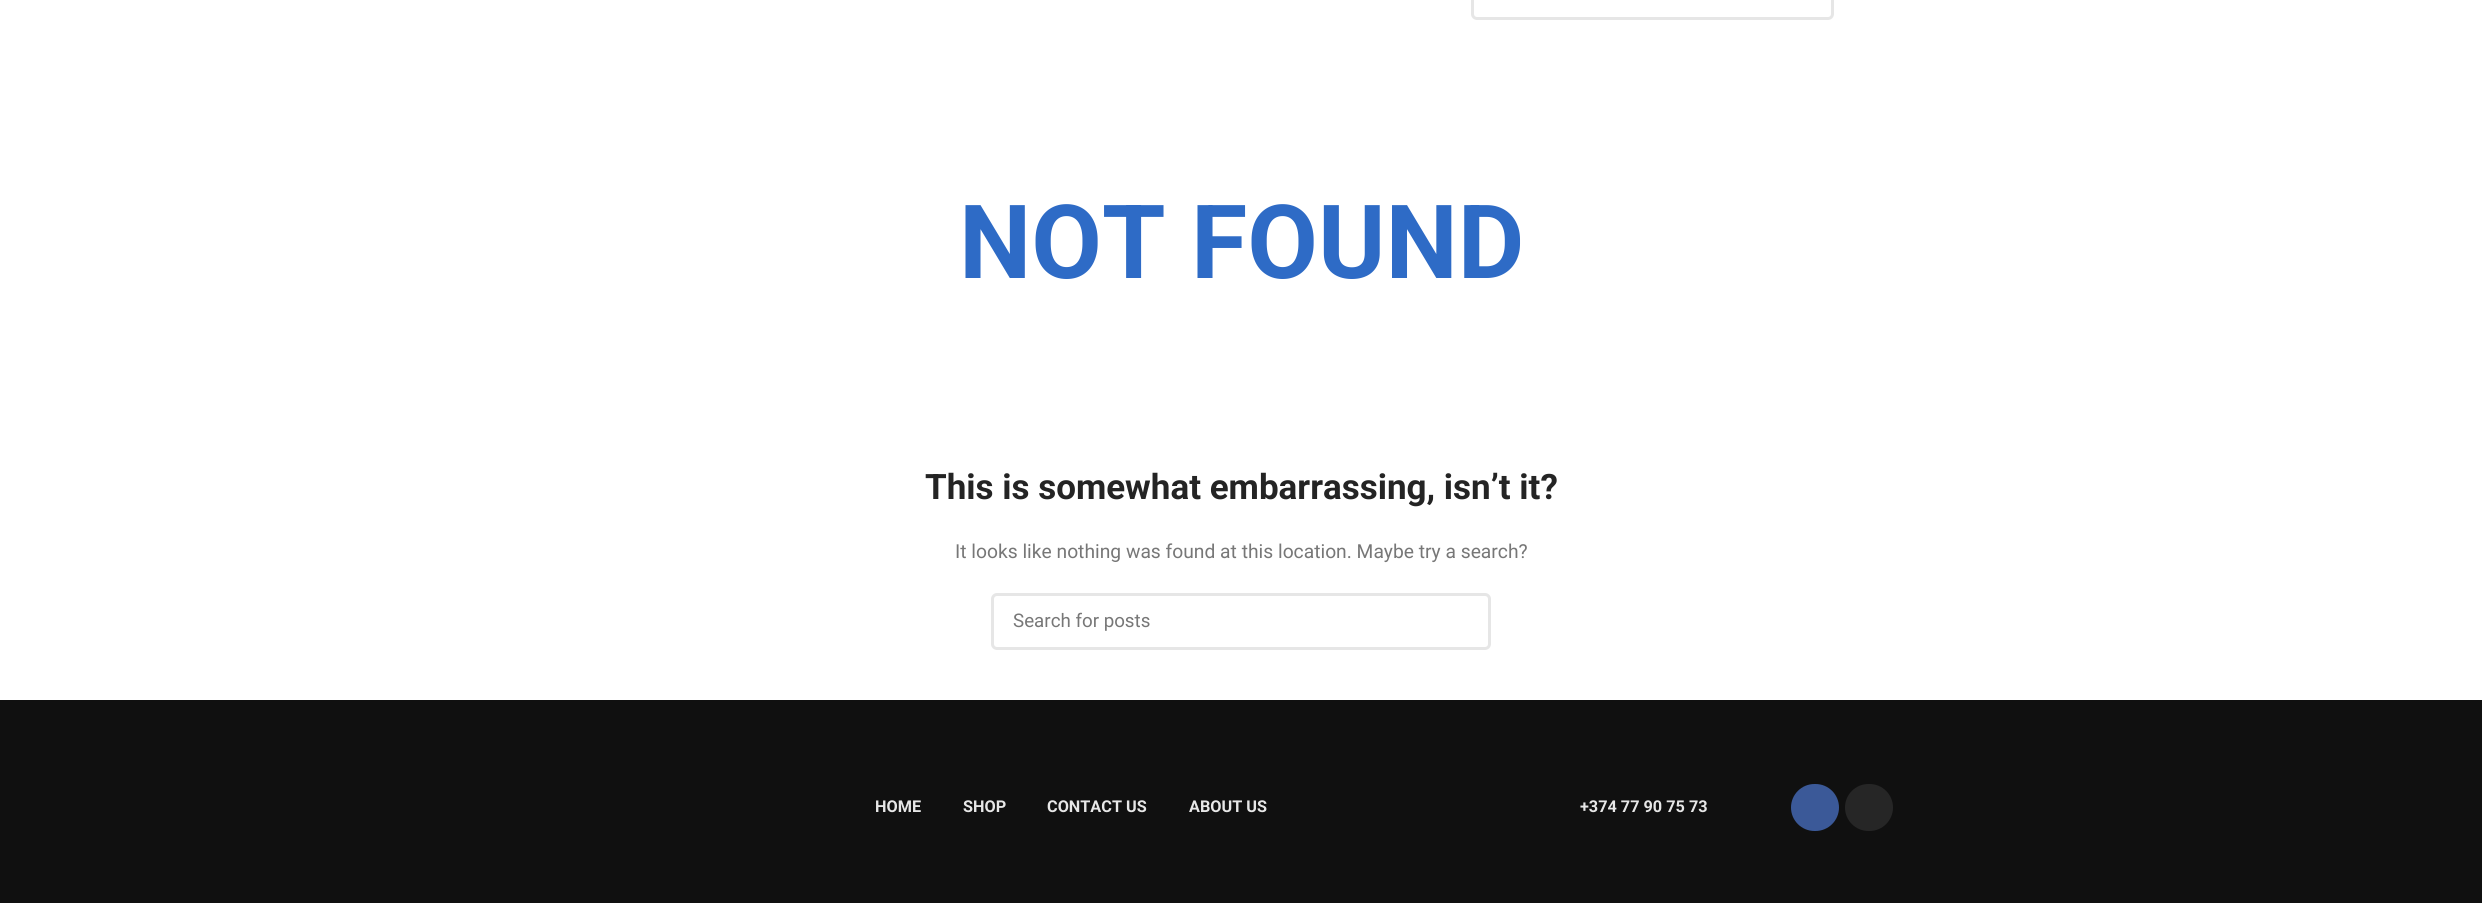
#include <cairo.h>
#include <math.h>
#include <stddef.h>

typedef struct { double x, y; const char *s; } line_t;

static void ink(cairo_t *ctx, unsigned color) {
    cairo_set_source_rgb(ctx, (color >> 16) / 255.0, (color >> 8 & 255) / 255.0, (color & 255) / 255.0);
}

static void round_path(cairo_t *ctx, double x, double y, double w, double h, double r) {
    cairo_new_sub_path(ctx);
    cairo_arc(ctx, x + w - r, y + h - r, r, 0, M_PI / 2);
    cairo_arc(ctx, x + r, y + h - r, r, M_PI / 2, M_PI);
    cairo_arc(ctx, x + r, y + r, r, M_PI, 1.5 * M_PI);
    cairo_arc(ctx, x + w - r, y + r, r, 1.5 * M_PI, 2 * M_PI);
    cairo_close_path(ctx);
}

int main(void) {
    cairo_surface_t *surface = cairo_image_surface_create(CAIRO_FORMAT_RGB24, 2482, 903);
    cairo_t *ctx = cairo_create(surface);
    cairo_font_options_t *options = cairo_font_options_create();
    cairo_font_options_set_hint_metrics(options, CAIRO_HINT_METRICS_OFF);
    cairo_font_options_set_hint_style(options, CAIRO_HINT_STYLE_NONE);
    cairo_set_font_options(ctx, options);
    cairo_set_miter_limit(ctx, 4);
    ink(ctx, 0xFFFFFF);
    cairo_paint(ctx);
    round_path(ctx, 1472.5, -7.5, 360, 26, 4.5);
    ink(ctx, 0xE6E6E6);
    cairo_set_line_width(ctx, 3);
    cairo_stroke(ctx);
    cairo_select_font_face(ctx, "Roboto", CAIRO_FONT_SLANT_NORMAL, CAIRO_FONT_WEIGHT_BOLD);
    cairo_set_font_size(ctx, 102.5);
    ink(ctx, 0x2E6BC6);
    cairo_move_to(ctx, 959, 278);
    cairo_show_text(ctx, "NOT FOUND");
    cairo_set_font_size(ctx, 35);
    ink(ctx, 0x242424);
    cairo_move_to(ctx, 925, 499);
    cairo_show_text(ctx, "This is somewhat embarrassing, isn’t it?");
    cairo_select_font_face(ctx, "Roboto", CAIRO_FONT_SLANT_NORMAL, CAIRO_FONT_WEIGHT_NORMAL);
    cairo_set_font_size(ctx, 19.25);
    ink(ctx, 0x777777);
    cairo_move_to(ctx, 955, 558);
    cairo_show_text(ctx, "It looks like nothing was found at this location. Maybe try a search?");
    round_path(ctx, 992.5, 594.5, 497, 54, 4.5);
    ink(ctx, 0xE6E6E6);
    cairo_stroke(ctx);
    cairo_set_font_size(ctx, 18.75);
    ink(ctx, 0x777777);
    cairo_move_to(ctx, 1013, 627);
    cairo_show_text(ctx, "Search for posts");
    ink(ctx, 0x101010);
    cairo_rectangle(ctx, 0, 700, 2482, 203);
    cairo_fill(ctx);
    cairo_select_font_face(ctx, "Roboto", CAIRO_FONT_SLANT_NORMAL, CAIRO_FONT_WEIGHT_BOLD);
    cairo_set_font_size(ctx, 16.25);
    ink(ctx, 0xE7E7E7);
    {
        static const line_t items[] = {
            {875, 812, "HOME"},
            {963, 812, "SHOP"},
            {1047, 812, "CONTACT US"},
            {1189, 812, "ABOUT US"},
            {1580, 812, "+374 77 90 75 73"},
        };
        for (size_t i = 0; i < sizeof items / sizeof *items; i++) {
            cairo_move_to(ctx, items[i].x, items[i].y);
            cairo_show_text(ctx, items[i].s);
        }
    }
    ink(ctx, 0x3B5998);
    round_path(ctx, 1791, 784, 48, 47, 23.5);
    cairo_fill(ctx);
    ink(ctx, 0x262626);
    round_path(ctx, 1845, 784, 48, 47, 23.5);
    cairo_fill(ctx);
    cairo_surface_write_to_png(surface, "image.png");
    cairo_font_options_destroy(options);
    cairo_destroy(ctx);
    cairo_surface_destroy(surface);
    return 0;
}
